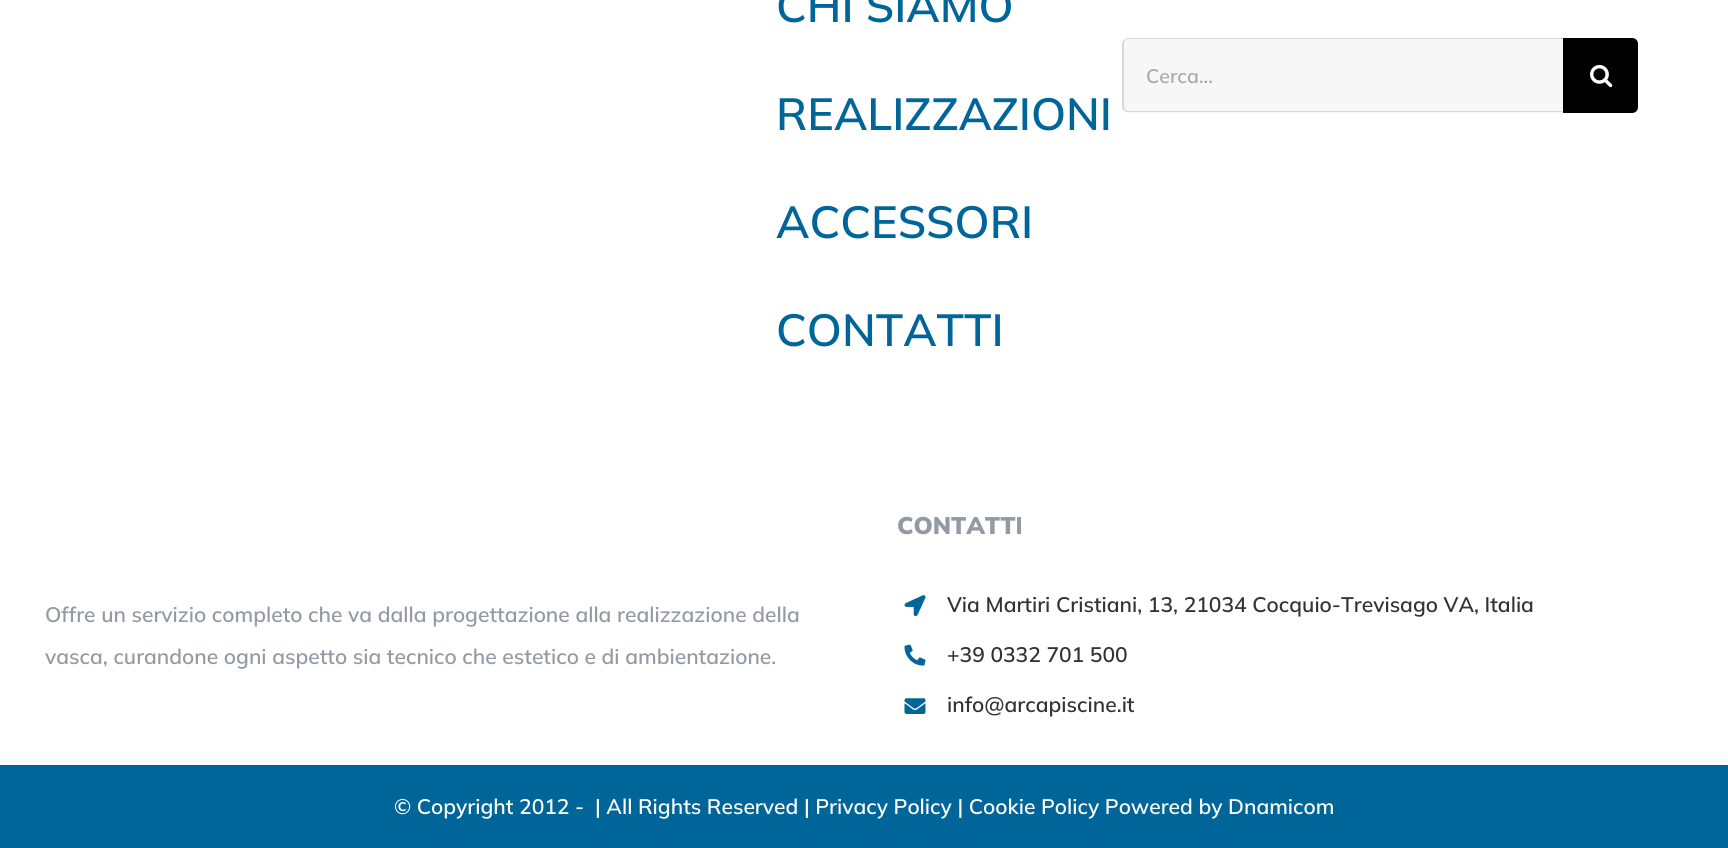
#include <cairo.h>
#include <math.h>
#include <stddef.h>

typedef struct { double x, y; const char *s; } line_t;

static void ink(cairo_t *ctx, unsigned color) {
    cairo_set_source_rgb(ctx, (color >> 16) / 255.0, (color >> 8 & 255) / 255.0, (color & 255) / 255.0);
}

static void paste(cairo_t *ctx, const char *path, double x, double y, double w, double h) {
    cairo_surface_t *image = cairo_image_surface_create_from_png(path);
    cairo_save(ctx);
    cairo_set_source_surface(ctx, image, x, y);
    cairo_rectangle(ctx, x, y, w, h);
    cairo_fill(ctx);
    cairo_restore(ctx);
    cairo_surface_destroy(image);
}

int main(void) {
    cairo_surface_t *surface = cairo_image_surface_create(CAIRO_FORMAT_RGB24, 1728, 848);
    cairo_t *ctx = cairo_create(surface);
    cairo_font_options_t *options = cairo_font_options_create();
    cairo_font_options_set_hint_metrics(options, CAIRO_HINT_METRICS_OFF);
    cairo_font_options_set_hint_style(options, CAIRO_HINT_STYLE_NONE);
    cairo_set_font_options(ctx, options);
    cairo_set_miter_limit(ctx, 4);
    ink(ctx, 0xFFFFFF);
    cairo_paint(ctx);
    cairo_select_font_face(ctx, "Mulish SemiBold", CAIRO_FONT_SLANT_NORMAL, CAIRO_FONT_WEIGHT_NORMAL);
    cairo_set_font_size(ctx, 45);
    ink(ctx, 0x006699);
    {
        static const line_t items[] = {
            {776, 22, "CHI SIAMO"},
            {776, 130, "REALIZZAZIONI"},
            {776, 238, "ACCESSORI"},
            {776, 346, "CONTATTI"},
        };
        for (size_t i = 0; i < sizeof items / sizeof *items; i++) {
            cairo_move_to(ctx, items[i].x, items[i].y);
            cairo_show_text(ctx, items[i].s);
        }
    }
    ink(ctx, 0xF7F7F7);
    cairo_new_path(ctx);
    cairo_move_to(ctx, 1128, 38);
    cairo_line_to(ctx, 1563, 38);
    cairo_line_to(ctx, 1563, 113);
    cairo_line_to(ctx, 1128, 113);
    cairo_curve_to(ctx, 1124.5, 113, 1122, 110.5, 1122, 107);
    cairo_line_to(ctx, 1122, 44);
    cairo_curve_to(ctx, 1122, 40.5, 1124.5, 38, 1128, 38);
    cairo_close_path(ctx);
    cairo_fill(ctx);
    ink(ctx, 0xD8D8D8);
    cairo_new_path(ctx);
    cairo_move_to(ctx, 1128, 38);
    cairo_curve_to(ctx, 1125, 38, 1122, 41, 1122, 44);
    cairo_line_to(ctx, 1122, 106);
    cairo_curve_to(ctx, 1122, 110, 1125, 112, 1128, 112);
    cairo_line_to(ctx, 1563, 112);
    cairo_line_to(ctx, 1563, 111);
    cairo_line_to(ctx, 1128, 111);
    cairo_curve_to(ctx, 1126, 111, 1124, 109, 1124, 106);
    cairo_line_to(ctx, 1124, 44);
    cairo_curve_to(ctx, 1124, 41, 1126, 39, 1128, 39);
    cairo_line_to(ctx, 1563, 39);
    cairo_line_to(ctx, 1563, 38);
    cairo_close_path(ctx);
    cairo_fill(ctx);
    cairo_set_font_size(ctx, 19.5);
    ink(ctx, 0xAAA9A9);
    cairo_move_to(ctx, 1146, 83);
    cairo_show_text(ctx, "Cerca...");
    ink(ctx, 0x000000);
    cairo_new_path(ctx);
    cairo_move_to(ctx, 1563, 38);
    cairo_line_to(ctx, 1632, 38);
    cairo_curve_to(ctx, 1635.5, 38, 1638, 40.5, 1638, 44);
    cairo_line_to(ctx, 1638, 107);
    cairo_curve_to(ctx, 1638, 110.5, 1635.5, 113, 1632, 113);
    cairo_line_to(ctx, 1563, 113);
    cairo_close_path(ctx);
    cairo_fill(ctx);
    paste(ctx, "media/1.png", 1590, 64, 23, 24);
    cairo_set_font_size(ctx, 21);
    ink(ctx, 0x929AA3);
    cairo_move_to(ctx, 45, 622);
    cairo_show_text(ctx, "Offre un servizio completo che va dalla progettazione alla realizzazione della");
    cairo_move_to(ctx, 45, 664);
    cairo_show_text(ctx, "vasca, curandone ogni aspetto sia tecnico che estetico e di ambientazione.");
    cairo_select_font_face(ctx, "Mulish Black", CAIRO_FONT_SLANT_NORMAL, CAIRO_FONT_WEIGHT_NORMAL);
    cairo_set_font_size(ctx, 24);
    cairo_move_to(ctx, 897, 534);
    cairo_show_text(ctx, "CONTATTI");
    paste(ctx, "media/2.png", 904, 595, 22, 22);
    cairo_select_font_face(ctx, "Mulish SemiBold", CAIRO_FONT_SLANT_NORMAL, CAIRO_FONT_WEIGHT_NORMAL);
    cairo_set_font_size(ctx, 21);
    ink(ctx, 0x333333);
    cairo_move_to(ctx, 947, 612);
    cairo_show_text(ctx, "Via Martiri Cristiani, 13, 21034 Cocquio-Trevisago VA, Italia");
    paste(ctx, "media/3.png", 904, 644, 22, 22);
    cairo_move_to(ctx, 947, 662);
    cairo_show_text(ctx, "+39 0332 701 500");
    paste(ctx, "media/4.png", 904, 698, 22, 16);
    cairo_move_to(ctx, 947, 712);
    cairo_show_text(ctx, "info@arcapiscine.it");
    ink(ctx, 0x006699);
    cairo_rectangle(ctx, 0, 765, 1728, 83);
    cairo_fill(ctx);
    ink(ctx, 0xFFFFFF);
    cairo_move_to(ctx, 394, 814);
    cairo_show_text(ctx, "© Copyright 2012 -");
    cairo_move_to(ctx, 595, 814);
    cairo_show_text(ctx, "| All Rights Reserved | Privacy Policy | Cookie Policy Powered by Dnamicom");
    cairo_surface_write_to_png(surface, "image.png");
    cairo_font_options_destroy(options);
    cairo_destroy(ctx);
    cairo_surface_destroy(surface);
    return 0;
}
